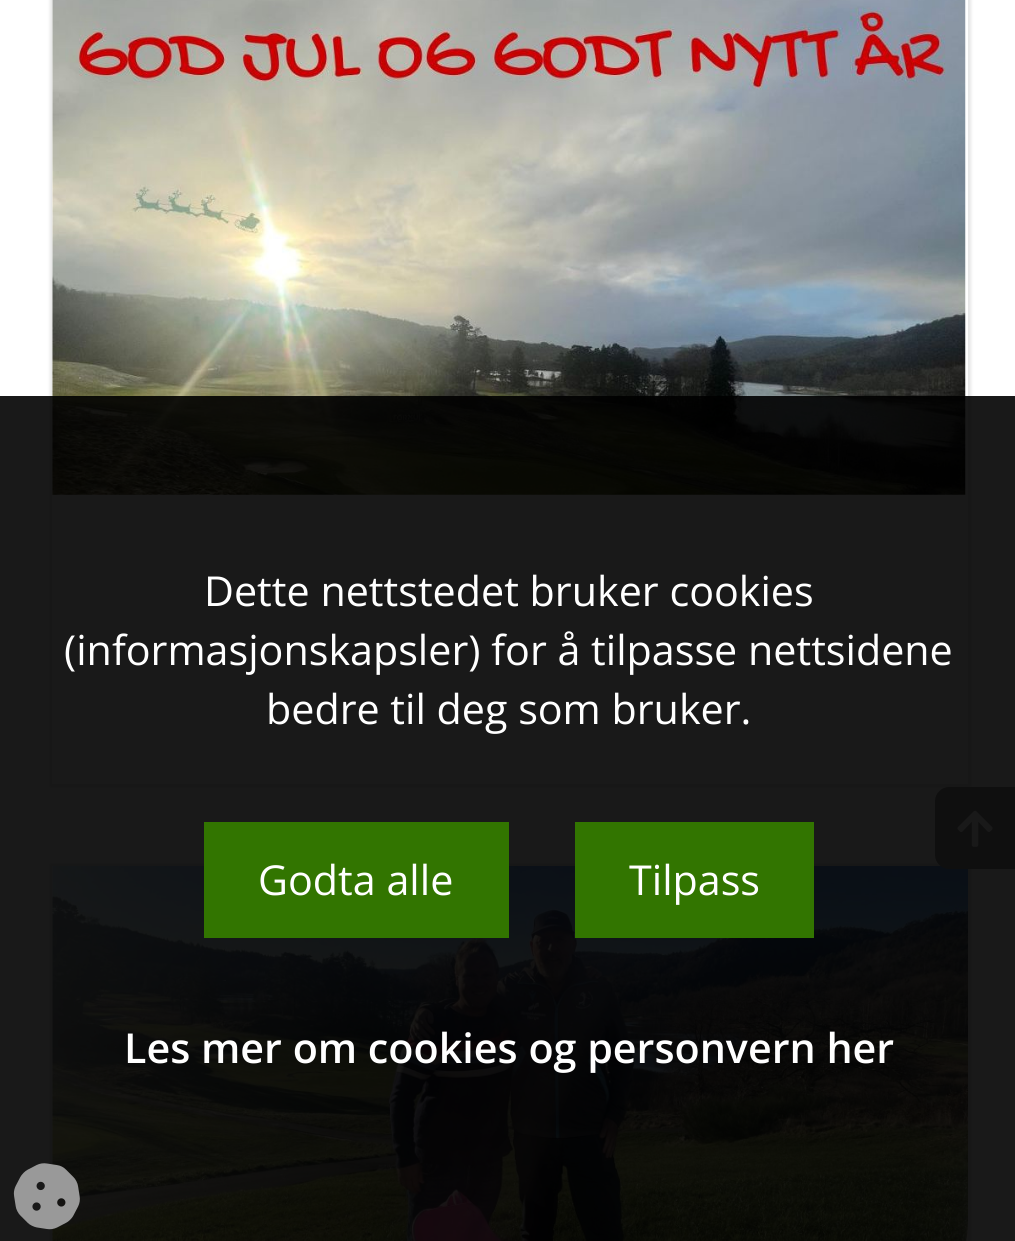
#include <cairo.h>
#include <math.h>
#include <stddef.h>

typedef struct { double x, y; const char *s; } line_t;

static void ink(cairo_t *ctx, unsigned color) {
    cairo_set_source_rgb(ctx, (color >> 16) / 255.0, (color >> 8 & 255) / 255.0, (color & 255) / 255.0);
}

static void round_path(cairo_t *ctx, double x, double y, double w, double h, double r) {
    cairo_new_sub_path(ctx);
    cairo_arc(ctx, x + w - r, y + h - r, r, 0, M_PI / 2);
    cairo_arc(ctx, x + r, y + h - r, r, M_PI / 2, M_PI);
    cairo_arc(ctx, x + r, y + r, r, M_PI, 1.5 * M_PI);
    cairo_arc(ctx, x + w - r, y + r, r, 1.5 * M_PI, 2 * M_PI);
    cairo_close_path(ctx);
}

static void blur_box(cairo_t *ctx, double x, double y, double w, double h, double r, double blur, double alpha) {
    cairo_push_group_with_content(ctx, CAIRO_CONTENT_ALPHA);
    cairo_set_operator(ctx, CAIRO_OPERATOR_SOURCE);
    for (int i = 15; i >= -15 && fmin(w, h) + blur * i / 3 > 0; i -= 2) {
        double e = blur * i / 6;
        cairo_set_source_rgba(ctx, 0, 0, 0, alpha * erfc((i - 1) / 8.5) / 2);
        round_path(ctx, x - e, y - e, w + 2 * e, h + 2 * e, fmax(0, fmin(r + e + blur * .6, fmin(w, h) / 2 + e)));
        cairo_fill(ctx);
    }
    cairo_pattern_t *soft = cairo_pop_group(ctx);
    cairo_mask(ctx, soft);
    cairo_pattern_destroy(soft);
}

static void paste(cairo_t *ctx, const char *path, double x, double y, double w, double h) {
    cairo_surface_t *image = cairo_image_surface_create_from_png(path);
    cairo_save(ctx);
    cairo_set_source_surface(ctx, image, x, y);
    cairo_rectangle(ctx, x, y, w, h);
    cairo_fill(ctx);
    cairo_restore(ctx);
    cairo_surface_destroy(image);
}

int main(void) {
    cairo_surface_t *surface = cairo_image_surface_create(CAIRO_FORMAT_RGB24, 1015, 1241);
    cairo_t *ctx = cairo_create(surface);
    cairo_font_options_t *options = cairo_font_options_create();
    cairo_font_options_set_hint_metrics(options, CAIRO_HINT_METRICS_OFF);
    cairo_font_options_set_hint_style(options, CAIRO_HINT_STYLE_NONE);
    cairo_set_font_options(ctx, options);
    cairo_set_miter_limit(ctx, 4);
    ink(ctx, 0xFFFFFF);
    cairo_paint(ctx);
    ink(ctx, 0x000000);
    blur_box(ctx, 50, -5, 921, 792, 0, 1.5, 0.1);
    ink(ctx, 0xFFFFFF);
    cairo_rectangle(ctx, 52, 0, 916, 784);
    cairo_fill(ctx);
    paste(ctx, "media/1.png", 52, 0, 914, 495);
    ink(ctx, 0x000000);
    blur_box(ctx, 50, 864, 921, 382, 0, 1.5, 0.1);
    ink(ctx, 0xFFFFFF);
    cairo_rectangle(ctx, 52, 866, 1, 375);
    cairo_fill(ctx);
    paste(ctx, "media/2.png", 52, 866, 916, 375);
    ink(ctx, 0x999999);
    cairo_new_path(ctx);
    cairo_move_to(ctx, 949, 787);
    cairo_line_to(ctx, 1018, 787);
    cairo_line_to(ctx, 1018, 869);
    cairo_line_to(ctx, 949, 869);
    cairo_curve_to(ctx, 941.5, 869, 935, 862.5, 935, 855);
    cairo_line_to(ctx, 935, 801);
    cairo_curve_to(ctx, 935, 793.5, 941.5, 787, 949, 787);
    cairo_close_path(ctx);
    cairo_fill(ctx);
    paste(ctx, "media/3.png", 957, 810, 36, 37);
    cairo_set_source_rgba(ctx, 0, 0, 0, 0.9);
    cairo_rectangle(ctx, 0, 396, 1015, 845);
    cairo_fill(ctx);
    cairo_select_font_face(ctx, "Open Sans", CAIRO_FONT_SLANT_NORMAL, CAIRO_FONT_WEIGHT_NORMAL);
    cairo_set_font_size(ctx, 41.25);
    ink(ctx, 0xFFFFFF);
    {
        static const line_t items[] = {
            {204, 606, "Dette nettstedet bruker cookies"},
            {64, 665, "(informasjonskapsler) for å tilpasse nettsidene"},
            {266, 724, "bedre til deg som bruker."},
        };
        for (size_t i = 0; i < sizeof items / sizeof *items; i++) {
            cairo_move_to(ctx, items[i].x, items[i].y);
            cairo_show_text(ctx, items[i].s);
        }
    }
    ink(ctx, 0x327500);
    cairo_rectangle(ctx, 204, 822, 305, 116);
    cairo_fill(ctx);
    ink(ctx, 0xFFFFFF);
    cairo_move_to(ctx, 258, 895);
    cairo_show_text(ctx, "Godta alle");
    ink(ctx, 0x327500);
    cairo_rectangle(ctx, 575, 822, 239, 116);
    cairo_fill(ctx);
    ink(ctx, 0xFFFFFF);
    cairo_move_to(ctx, 629, 895);
    cairo_show_text(ctx, "Tilpass");
    cairo_select_font_face(ctx, "Open Sans SemiBold", CAIRO_FONT_SLANT_NORMAL, CAIRO_FONT_WEIGHT_NORMAL);
    cairo_move_to(ctx, 124, 1063);
    cairo_show_text(ctx, "Les mer om cookies og personvern her");
    paste(ctx, "media/4.png", 13, 1163, 67, 67);
    cairo_surface_write_to_png(surface, "image.png");
    cairo_font_options_destroy(options);
    cairo_destroy(ctx);
    cairo_surface_destroy(surface);
    return 0;
}
